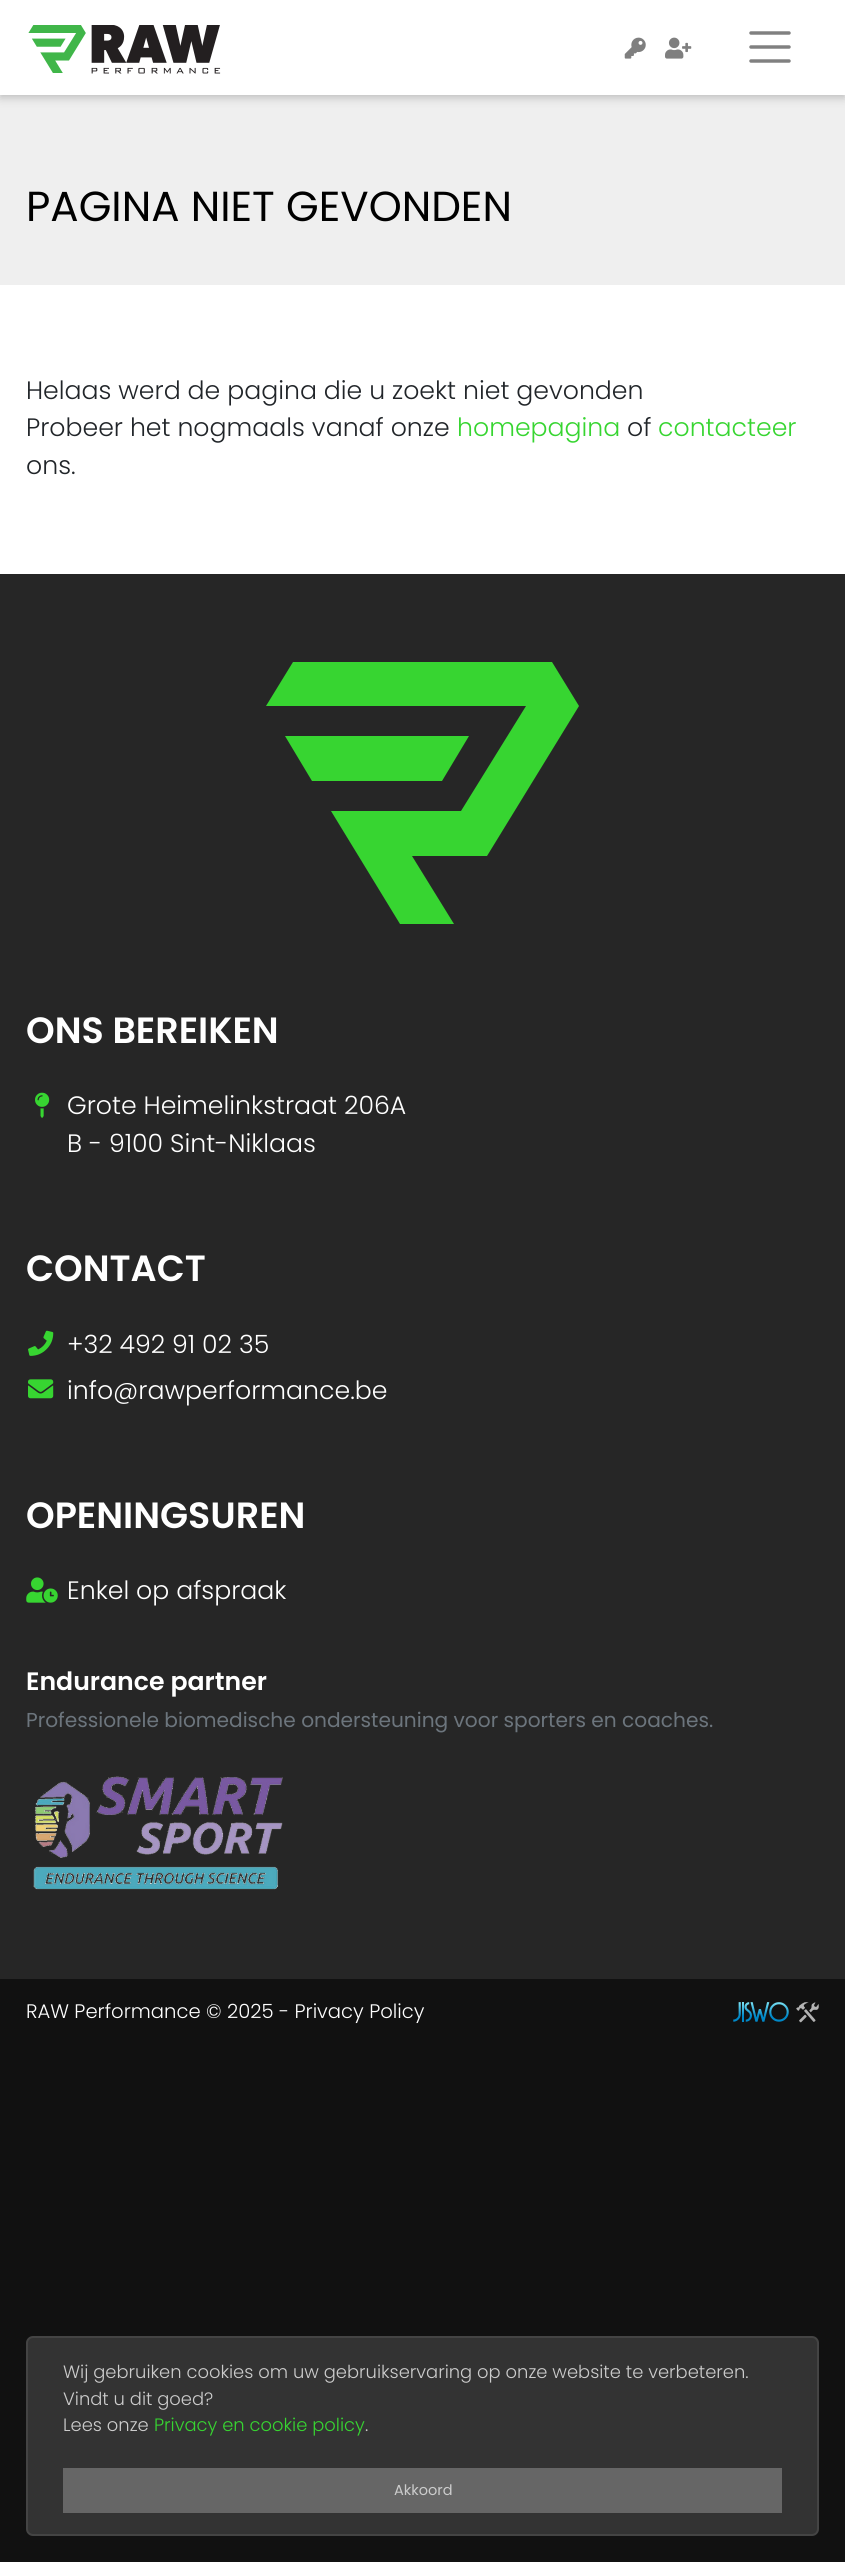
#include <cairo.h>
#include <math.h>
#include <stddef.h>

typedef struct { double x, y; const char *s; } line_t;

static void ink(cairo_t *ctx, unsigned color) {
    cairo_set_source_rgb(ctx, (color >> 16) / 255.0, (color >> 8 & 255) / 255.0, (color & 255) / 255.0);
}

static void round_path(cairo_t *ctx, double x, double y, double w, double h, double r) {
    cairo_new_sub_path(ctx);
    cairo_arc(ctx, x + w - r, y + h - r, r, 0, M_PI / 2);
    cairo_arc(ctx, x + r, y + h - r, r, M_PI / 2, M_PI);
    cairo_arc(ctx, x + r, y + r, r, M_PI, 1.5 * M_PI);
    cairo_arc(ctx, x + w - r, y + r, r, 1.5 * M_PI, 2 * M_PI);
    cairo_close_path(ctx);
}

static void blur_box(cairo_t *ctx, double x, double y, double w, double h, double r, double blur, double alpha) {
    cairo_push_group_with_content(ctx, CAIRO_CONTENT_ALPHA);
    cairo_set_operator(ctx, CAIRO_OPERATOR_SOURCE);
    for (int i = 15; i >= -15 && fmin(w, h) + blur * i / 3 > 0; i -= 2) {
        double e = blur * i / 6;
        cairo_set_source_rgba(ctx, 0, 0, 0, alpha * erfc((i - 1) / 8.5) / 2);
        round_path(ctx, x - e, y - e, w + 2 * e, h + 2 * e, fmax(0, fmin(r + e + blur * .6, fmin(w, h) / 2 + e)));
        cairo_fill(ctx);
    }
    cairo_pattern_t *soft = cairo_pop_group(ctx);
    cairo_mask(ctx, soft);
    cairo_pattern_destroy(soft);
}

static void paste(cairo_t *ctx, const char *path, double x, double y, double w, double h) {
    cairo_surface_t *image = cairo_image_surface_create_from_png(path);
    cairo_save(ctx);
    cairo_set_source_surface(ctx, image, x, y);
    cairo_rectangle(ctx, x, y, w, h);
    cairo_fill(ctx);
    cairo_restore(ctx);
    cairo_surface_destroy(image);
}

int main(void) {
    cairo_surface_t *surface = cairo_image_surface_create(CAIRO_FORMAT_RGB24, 845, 2562);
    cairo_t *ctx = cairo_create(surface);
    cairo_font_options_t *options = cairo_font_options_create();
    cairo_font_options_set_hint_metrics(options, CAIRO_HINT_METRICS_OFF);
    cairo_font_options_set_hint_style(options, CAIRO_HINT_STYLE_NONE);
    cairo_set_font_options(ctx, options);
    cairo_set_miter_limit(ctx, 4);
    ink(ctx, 0x111111);
    cairo_paint(ctx);
    ink(ctx, 0xFFFFFF);
    cairo_rectangle(ctx, 0, 285, 845, 289);
    cairo_fill(ctx);
    ink(ctx, 0xEFEFEF);
    cairo_rectangle(ctx, 0, 95, 845, 190);
    cairo_fill(ctx);
    ink(ctx, 0x000000);
    blur_box(ctx, 0, 4, 845, 94, 0, 4.5, 0.2);
    ink(ctx, 0xFFFFFF);
    cairo_rectangle(ctx, 0, 0, 845, 95);
    cairo_fill(ctx);
    paste(ctx, "media/1.png", 28, 25, 193, 49);
    cairo_new_path(ctx);
    cairo_move_to(ctx, 751, 33);
    cairo_line_to(ctx, 789, 33);
    cairo_move_to(ctx, 751, 47);
    cairo_line_to(ctx, 789, 47);
    cairo_move_to(ctx, 751, 61);
    cairo_line_to(ctx, 789, 61);
    ink(ctx, 0x808080);
    cairo_set_line_width(ctx, 3.5);
    cairo_set_line_cap(ctx, CAIRO_LINE_CAP_ROUND);
    cairo_stroke(ctx);
    paste(ctx, "media/2.png", 624, 37, 22, 22);
    paste(ctx, "media/3.png", 665, 37, 27, 22);
    cairo_select_font_face(ctx, "Poppins", CAIRO_FONT_SLANT_NORMAL, CAIRO_FONT_WEIGHT_NORMAL);
    cairo_set_font_size(ctx, 42);
    ink(ctx, 0x000000);
    cairo_move_to(ctx, 26, 221);
    cairo_show_text(ctx, "PAGINA NIET GEVONDEN");
    cairo_select_font_face(ctx, "Poppins Light", CAIRO_FONT_SLANT_NORMAL, CAIRO_FONT_WEIGHT_NORMAL);
    cairo_set_font_size(ctx, 25.2);
    ink(ctx, 0x212529);
    cairo_move_to(ctx, 26, 399);
    cairo_show_text(ctx, "Helaas werd de pagina die u zoekt niet gevonden");
    cairo_move_to(ctx, 26, 436);
    cairo_show_text(ctx, "Probeer het nogmaals vanaf onze");
    ink(ctx, 0x37D531);
    cairo_move_to(ctx, 457, 436);
    cairo_show_text(ctx, "homepagina");
    ink(ctx, 0x212529);
    cairo_move_to(ctx, 627, 436);
    cairo_show_text(ctx, "of");
    ink(ctx, 0x37D531);
    cairo_move_to(ctx, 658, 436);
    cairo_show_text(ctx, "contacteer");
    ink(ctx, 0x212529);
    cairo_move_to(ctx, 26, 474);
    cairo_show_text(ctx, "ons.");
    ink(ctx, 0x262626);
    cairo_rectangle(ctx, 0, 574, 845, 1405);
    cairo_fill(ctx);
    ink(ctx, 0x37D531);
    cairo_new_path(ctx);
    cairo_move_to(ctx, 293, 662);
    cairo_line_to(ctx, 266, 706);
    cairo_line_to(ctx, 526, 706);
    cairo_line_to(ctx, 461, 811);
    cairo_line_to(ctx, 331, 811);
    cairo_line_to(ctx, 400, 924);
    cairo_line_to(ctx, 454, 924);
    cairo_line_to(ctx, 412, 856);
    cairo_line_to(ctx, 487, 856);
    cairo_line_to(ctx, 579, 706);
    cairo_line_to(ctx, 552, 662);
    cairo_close_path(ctx);
    cairo_move_to(ctx, 442, 781);
    cairo_line_to(ctx, 469, 736);
    cairo_line_to(ctx, 285, 736);
    cairo_line_to(ctx, 312, 781);
    cairo_close_path(ctx);
    cairo_fill(ctx);
    cairo_select_font_face(ctx, "Poppins SemiBold", CAIRO_FONT_SLANT_NORMAL, CAIRO_FONT_WEIGHT_NORMAL);
    cairo_set_font_size(ctx, 36.5);
    ink(ctx, 0xFFFFFF);
    cairo_move_to(ctx, 26, 1043);
    cairo_show_text(ctx, "ONS BEREIKEN");
    paste(ctx, "media/4.png", 35, 1092, 15, 26);
    cairo_select_font_face(ctx, "Poppins Light", CAIRO_FONT_SLANT_NORMAL, CAIRO_FONT_WEIGHT_NORMAL);
    cairo_set_font_size(ctx, 25.2);
    cairo_move_to(ctx, 67, 1114);
    cairo_show_text(ctx, "Grote Heimelinkstraat 206A");
    cairo_move_to(ctx, 67, 1152);
    cairo_show_text(ctx, "B - 9100 Sint-Niklaas");
    cairo_select_font_face(ctx, "Poppins SemiBold", CAIRO_FONT_SLANT_NORMAL, CAIRO_FONT_WEIGHT_NORMAL);
    cairo_set_font_size(ctx, 36.5);
    cairo_move_to(ctx, 26, 1281);
    cairo_show_text(ctx, "CONTACT");
    paste(ctx, "media/5.png", 28, 1330, 26, 26);
    cairo_select_font_face(ctx, "Poppins Light", CAIRO_FONT_SLANT_NORMAL, CAIRO_FONT_WEIGHT_NORMAL);
    cairo_set_font_size(ctx, 25.2);
    cairo_move_to(ctx, 67, 1353);
    cairo_show_text(ctx, "+32 492 91 02 35");
    paste(ctx, "media/6.png", 28, 1379, 26, 20);
    cairo_move_to(ctx, 67, 1399);
    cairo_show_text(ctx, "info@rawperformance.be");
    cairo_select_font_face(ctx, "Poppins SemiBold", CAIRO_FONT_SLANT_NORMAL, CAIRO_FONT_WEIGHT_NORMAL);
    cairo_set_font_size(ctx, 36.5);
    cairo_move_to(ctx, 26, 1528);
    cairo_show_text(ctx, "OPENINGSUREN");
    paste(ctx, "media/7.png", 26, 1577, 32, 26);
    cairo_select_font_face(ctx, "Poppins Light", CAIRO_FONT_SLANT_NORMAL, CAIRO_FONT_WEIGHT_NORMAL);
    cairo_set_font_size(ctx, 25.2);
    cairo_move_to(ctx, 67, 1599);
    cairo_show_text(ctx, "Enkel op afspraak");
    cairo_select_font_face(ctx, "Poppins SemiBold", CAIRO_FONT_SLANT_NORMAL, CAIRO_FONT_WEIGHT_NORMAL);
    cairo_move_to(ctx, 26, 1690);
    cairo_show_text(ctx, "Endurance partner");
    cairo_select_font_face(ctx, "Poppins", CAIRO_FONT_SLANT_NORMAL, CAIRO_FONT_WEIGHT_NORMAL);
    cairo_set_font_size(ctx, 20.15);
    ink(ctx, 0x6C757D);
    cairo_move_to(ctx, 26, 1727);
    cairo_show_text(ctx, "Professionele biomedische ondersteuning voor sporters en coaches.");
    paste(ctx, "media/8.png", 33, 1776, 250, 114);
    cairo_select_font_face(ctx, "Poppins Light", CAIRO_FONT_SLANT_NORMAL, CAIRO_FONT_WEIGHT_NORMAL);
    cairo_set_font_size(ctx, 19.6);
    ink(ctx, 0xFFFFFF);
    cairo_move_to(ctx, 26, 2018);
    cairo_show_text(ctx, "RAW Performance © 2025 - Privacy Policy");
    paste(ctx, "media/9.png", 733, 2002, 56, 20);
    paste(ctx, "media/10.png", 796, 2002, 23, 21);
    ink(ctx, 0x333333);
    round_path(ctx, 27, 2337, 791, 198, 6);
    cairo_fill_preserve(ctx);
    ink(ctx, 0x444444);
    cairo_set_line_width(ctx, 2);
    cairo_set_line_cap(ctx, CAIRO_LINE_CAP_BUTT);
    cairo_stroke(ctx);
    cairo_set_font_size(ctx, 17.9);
    ink(ctx, 0xCCCCCC);
    {
        static const line_t items[] = {
            {63, 2378, "Wij gebruiken cookies om uw gebruikservaring op onze website te verbeteren."},
            {63, 2405, "Vindt u dit goed?"},
            {63, 2431, "Lees onze"},
        };
        for (size_t i = 0; i < sizeof items / sizeof *items; i++) {
            cairo_move_to(ctx, items[i].x, items[i].y);
            cairo_show_text(ctx, items[i].s);
        }
    }
    ink(ctx, 0x37D531);
    cairo_move_to(ctx, 154, 2431);
    cairo_show_text(ctx, "Privacy en cookie policy");
    ink(ctx, 0xCCCCCC);
    cairo_move_to(ctx, 365, 2431);
    cairo_show_text(ctx, ".");
    ink(ctx, 0x666666);
    cairo_rectangle(ctx, 63, 2468, 719, 45);
    cairo_fill(ctx);
    cairo_select_font_face(ctx, "Poppins", CAIRO_FONT_SLANT_NORMAL, CAIRO_FONT_WEIGHT_NORMAL);
    cairo_set_font_size(ctx, 14.5);
    ink(ctx, 0xCCCCCC);
    cairo_move_to(ctx, 394, 2495);
    cairo_show_text(ctx, "Akkoord");
    cairo_surface_write_to_png(surface, "image.png");
    cairo_font_options_destroy(options);
    cairo_destroy(ctx);
    cairo_surface_destroy(surface);
    return 0;
}
